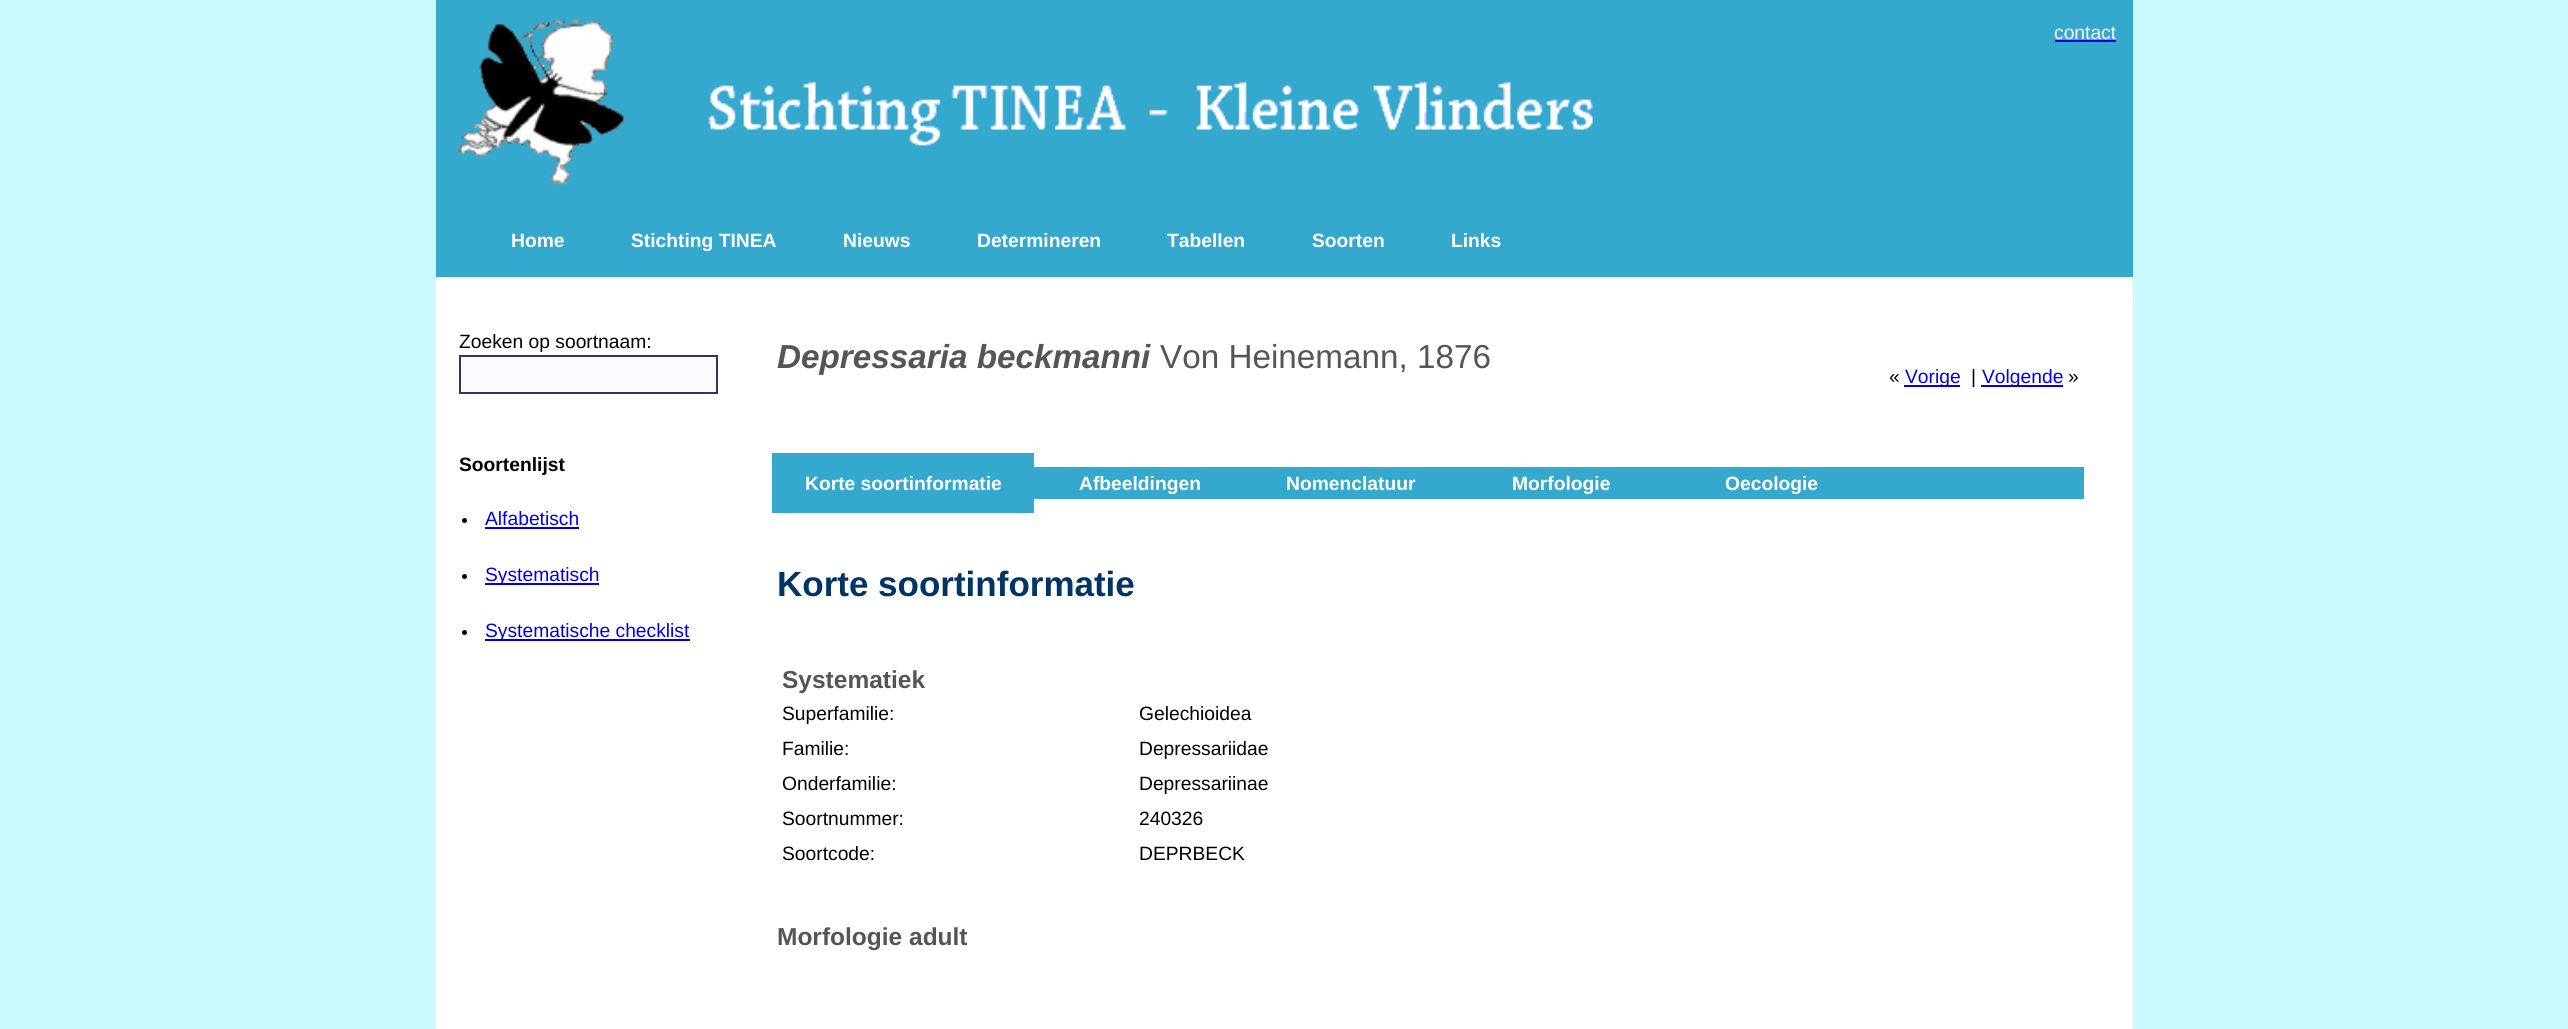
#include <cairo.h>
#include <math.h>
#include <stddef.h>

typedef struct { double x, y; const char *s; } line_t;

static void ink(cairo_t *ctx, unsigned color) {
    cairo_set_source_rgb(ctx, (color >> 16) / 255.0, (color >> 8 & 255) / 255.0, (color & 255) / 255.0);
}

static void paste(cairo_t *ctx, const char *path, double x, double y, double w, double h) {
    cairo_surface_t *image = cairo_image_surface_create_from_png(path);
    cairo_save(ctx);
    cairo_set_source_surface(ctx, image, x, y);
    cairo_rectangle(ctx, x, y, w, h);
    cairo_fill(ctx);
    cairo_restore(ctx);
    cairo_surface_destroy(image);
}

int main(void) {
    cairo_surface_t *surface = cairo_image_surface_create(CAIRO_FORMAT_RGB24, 2568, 1029);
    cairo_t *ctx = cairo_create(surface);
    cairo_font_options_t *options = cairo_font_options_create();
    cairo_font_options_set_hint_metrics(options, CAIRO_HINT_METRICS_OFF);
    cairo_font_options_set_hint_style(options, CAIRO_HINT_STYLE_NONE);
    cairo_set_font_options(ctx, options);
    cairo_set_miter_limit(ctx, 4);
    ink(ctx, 0xCBFAFE);
    cairo_paint(ctx);
    ink(ctx, 0xFFFFFF);
    cairo_rectangle(ctx, 436, 277, 1697, 752);
    cairo_fill(ctx);
    ink(ctx, 0x35A8CE);
    cairo_rectangle(ctx, 436, 0, 1697, 277);
    cairo_fill(ctx);
    paste(ctx, "media/1.png", 458, 18, 168, 167);
    cairo_select_font_face(ctx, "Liberation Sans", CAIRO_FONT_SLANT_NORMAL, CAIRO_FONT_WEIGHT_NORMAL);
    cairo_set_font_size(ctx, 19.25);
    ink(ctx, 0xFFFFFF);
    cairo_move_to(ctx, 2054, 39);
    cairo_show_text(ctx, "contact");
    ink(ctx, 0x0000EE);
    cairo_rectangle(ctx, 2055, 40, 61, 2);
    cairo_fill(ctx);
    paste(ctx, "media/2.png", 708, 81, 885, 65);
    cairo_select_font_face(ctx, "Liberation Sans", CAIRO_FONT_SLANT_NORMAL, CAIRO_FONT_WEIGHT_BOLD);
    ink(ctx, 0xFFFFFF);
    {
        static const line_t items[] = {
            {511, 247, "Home"},
            {631, 247, "Stichting TINEA"},
            {843, 247, "Nieuws"},
            {977, 247, "Determineren"},
            {1167, 247, "Tabellen"},
            {1312, 247, "Soorten"},
            {1451, 247, "Links"},
        };
        for (size_t i = 0; i < sizeof items / sizeof *items; i++) {
            cairo_move_to(ctx, items[i].x, items[i].y);
            cairo_show_text(ctx, items[i].s);
        }
    }
    cairo_select_font_face(ctx, "Liberation Sans", CAIRO_FONT_SLANT_NORMAL, CAIRO_FONT_WEIGHT_NORMAL);
    ink(ctx, 0x000000);
    cairo_move_to(ctx, 459, 348);
    cairo_show_text(ctx, "Zoeken op soortnaam:");
    ink(ctx, 0xFAFAFF);
    cairo_rectangle(ctx, 460, 356, 257, 37);
    cairo_fill_preserve(ctx);
    ink(ctx, 0x333366);
    cairo_stroke(ctx);
    cairo_select_font_face(ctx, "Liberation Sans", CAIRO_FONT_SLANT_NORMAL, CAIRO_FONT_WEIGHT_BOLD);
    ink(ctx, 0x000000);
    cairo_move_to(ctx, 459, 471);
    cairo_show_text(ctx, "Soortenlijst");
    cairo_new_path(ctx);
    cairo_arc(ctx, 464.5, 520.5, 2.5, 0, 2 * M_PI);
    cairo_fill(ctx);
    cairo_select_font_face(ctx, "Liberation Sans", CAIRO_FONT_SLANT_NORMAL, CAIRO_FONT_WEIGHT_NORMAL);
    ink(ctx, 0x0000EE);
    cairo_move_to(ctx, 485, 525);
    cairo_show_text(ctx, "Alfabetisch");
    cairo_rectangle(ctx, 485, 527, 94, 2);
    cairo_fill(ctx);
    ink(ctx, 0x000000);
    cairo_arc(ctx, 464.5, 576.5, 2.5, 0, 2 * M_PI);
    cairo_fill(ctx);
    ink(ctx, 0x0000EE);
    cairo_rectangle(ctx, 485, 583, 114, 2);
    cairo_fill(ctx);
    cairo_move_to(ctx, 485, 581);
    cairo_show_text(ctx, "Systematisch");
    ink(ctx, 0x000000);
    cairo_new_path(ctx);
    cairo_arc(ctx, 464.5, 632.5, 2.5, 0, 2 * M_PI);
    cairo_fill(ctx);
    ink(ctx, 0x0000EE);
    cairo_rectangle(ctx, 485, 639, 205, 2);
    cairo_fill(ctx);
    cairo_move_to(ctx, 485, 637);
    cairo_show_text(ctx, "Systematische checklist");
    cairo_select_font_face(ctx, "Liberation Sans", CAIRO_FONT_SLANT_ITALIC, CAIRO_FONT_WEIGHT_BOLD);
    cairo_set_font_size(ctx, 33.25);
    ink(ctx, 0x555555);
    cairo_move_to(ctx, 777, 368);
    cairo_show_text(ctx, "Depressaria beckmanni");
    cairo_select_font_face(ctx, "Liberation Sans", CAIRO_FONT_SLANT_NORMAL, CAIRO_FONT_WEIGHT_NORMAL);
    cairo_move_to(ctx, 1160, 368);
    cairo_show_text(ctx, "Von Heinemann, 1876");
    cairo_set_font_size(ctx, 19.25);
    ink(ctx, 0x000000);
    cairo_move_to(ctx, 1889, 383);
    cairo_show_text(ctx, "«");
    ink(ctx, 0x0000EE);
    cairo_rectangle(ctx, 1904, 385, 56, 2);
    cairo_fill(ctx);
    cairo_move_to(ctx, 1905, 383);
    cairo_show_text(ctx, "Vorige");
    ink(ctx, 0x000000);
    cairo_move_to(ctx, 1971, 383);
    cairo_show_text(ctx, "|");
    ink(ctx, 0x0000EE);
    cairo_rectangle(ctx, 1981, 385, 82, 2);
    cairo_fill(ctx);
    cairo_move_to(ctx, 1982, 383);
    cairo_show_text(ctx, "Volgende");
    ink(ctx, 0x000000);
    cairo_move_to(ctx, 2068, 383);
    cairo_show_text(ctx, "»");
    ink(ctx, 0x35A8CE);
    cairo_rectangle(ctx, 772, 453, 262, 14);
    cairo_fill(ctx);
    cairo_rectangle(ctx, 772, 467, 1312, 32);
    cairo_fill(ctx);
    cairo_select_font_face(ctx, "Liberation Sans", CAIRO_FONT_SLANT_NORMAL, CAIRO_FONT_WEIGHT_BOLD);
    ink(ctx, 0xFFFFFF);
    {
        static const line_t items[] = {
            {805, 490, "Korte soortinformatie"},
            {1079, 490, "Afbeeldingen"},
            {1286, 490, "Nomenclatuur"},
            {1512, 490, "Morfologie"},
            {1725, 490, "Oecologie"},
        };
        for (size_t i = 0; i < sizeof items / sizeof *items; i++) {
            cairo_move_to(ctx, items[i].x, items[i].y);
            cairo_show_text(ctx, items[i].s);
        }
    }
    ink(ctx, 0x35A8CE);
    cairo_rectangle(ctx, 772, 499, 262, 14);
    cairo_fill(ctx);
    cairo_set_font_size(ctx, 35);
    ink(ctx, 0x003366);
    cairo_move_to(ctx, 777, 596);
    cairo_show_text(ctx, "Korte soortinformatie");
    cairo_set_font_size(ctx, 24.5);
    ink(ctx, 0x555555);
    cairo_move_to(ctx, 782, 688);
    cairo_show_text(ctx, "Systematiek");
    cairo_select_font_face(ctx, "Liberation Sans", CAIRO_FONT_SLANT_NORMAL, CAIRO_FONT_WEIGHT_NORMAL);
    cairo_set_font_size(ctx, 19.25);
    ink(ctx, 0x000000);
    {
        static const line_t items[] = {
            {782, 720, "Superfamilie:"},
            {1139, 720, "Gelechioidea"},
            {782, 755, "Familie:"},
            {1139, 755, "Depressariidae"},
            {782, 790, "Onderfamilie:"},
            {1139, 790, "Depressariinae"},
            {782, 825, "Soortnummer:"},
            {1139, 825, "240326"},
            {782, 860, "Soortcode:"},
            {1139, 860, "DEPRBECK"},
        };
        for (size_t i = 0; i < sizeof items / sizeof *items; i++) {
            cairo_move_to(ctx, items[i].x, items[i].y);
            cairo_show_text(ctx, items[i].s);
        }
    }
    cairo_select_font_face(ctx, "Liberation Sans", CAIRO_FONT_SLANT_NORMAL, CAIRO_FONT_WEIGHT_BOLD);
    cairo_set_font_size(ctx, 24.5);
    ink(ctx, 0x555555);
    cairo_move_to(ctx, 777, 945);
    cairo_show_text(ctx, "Morfologie adult");
    cairo_surface_write_to_png(surface, "image.png");
    cairo_font_options_destroy(options);
    cairo_destroy(ctx);
    cairo_surface_destroy(surface);
    return 0;
}
